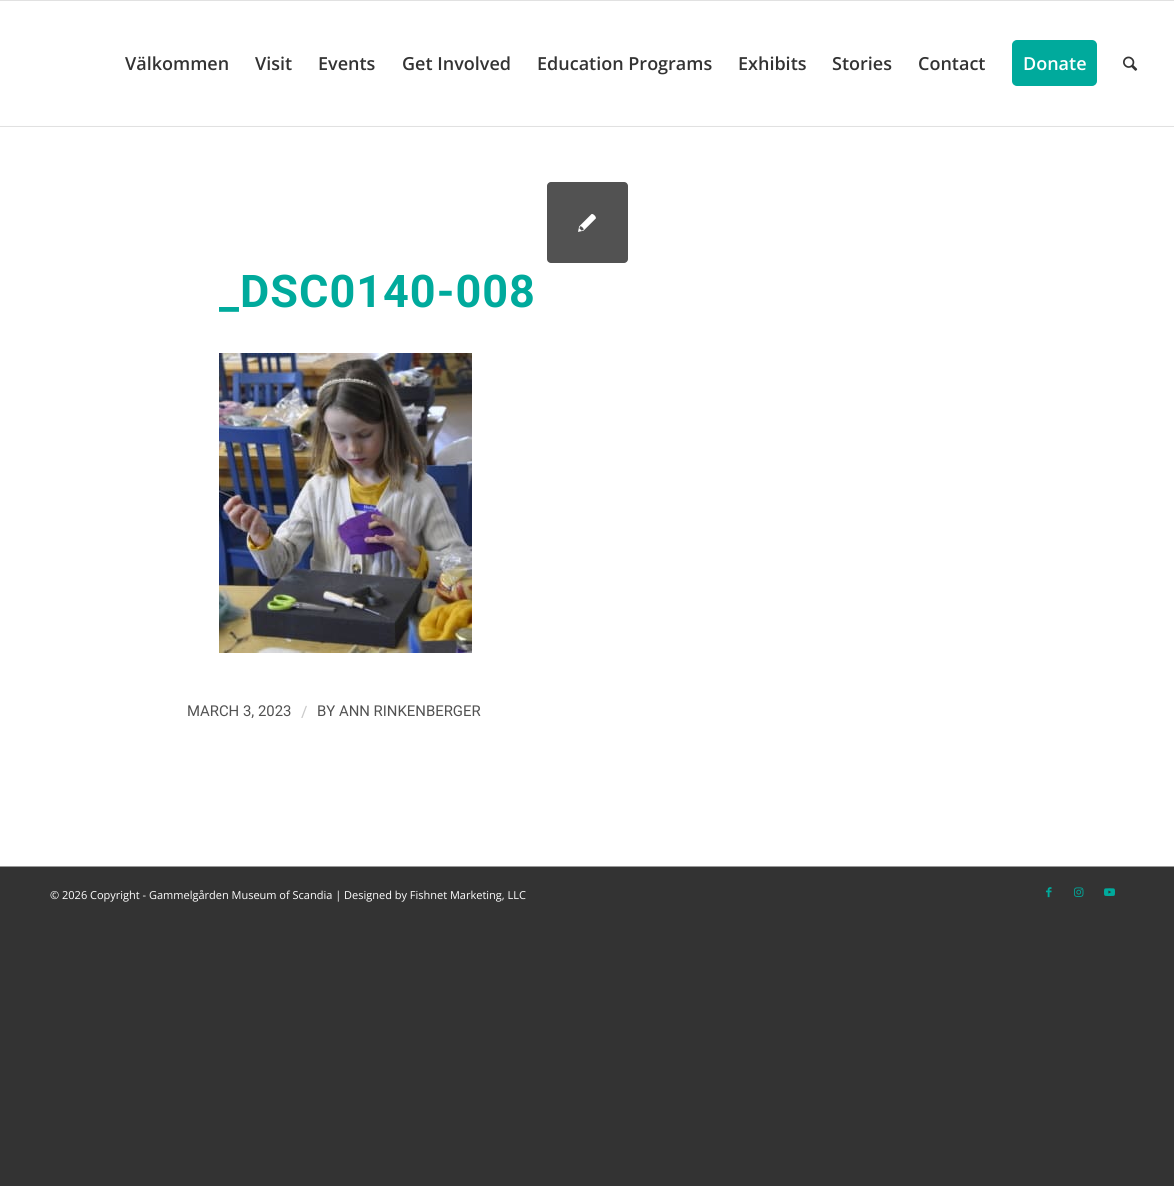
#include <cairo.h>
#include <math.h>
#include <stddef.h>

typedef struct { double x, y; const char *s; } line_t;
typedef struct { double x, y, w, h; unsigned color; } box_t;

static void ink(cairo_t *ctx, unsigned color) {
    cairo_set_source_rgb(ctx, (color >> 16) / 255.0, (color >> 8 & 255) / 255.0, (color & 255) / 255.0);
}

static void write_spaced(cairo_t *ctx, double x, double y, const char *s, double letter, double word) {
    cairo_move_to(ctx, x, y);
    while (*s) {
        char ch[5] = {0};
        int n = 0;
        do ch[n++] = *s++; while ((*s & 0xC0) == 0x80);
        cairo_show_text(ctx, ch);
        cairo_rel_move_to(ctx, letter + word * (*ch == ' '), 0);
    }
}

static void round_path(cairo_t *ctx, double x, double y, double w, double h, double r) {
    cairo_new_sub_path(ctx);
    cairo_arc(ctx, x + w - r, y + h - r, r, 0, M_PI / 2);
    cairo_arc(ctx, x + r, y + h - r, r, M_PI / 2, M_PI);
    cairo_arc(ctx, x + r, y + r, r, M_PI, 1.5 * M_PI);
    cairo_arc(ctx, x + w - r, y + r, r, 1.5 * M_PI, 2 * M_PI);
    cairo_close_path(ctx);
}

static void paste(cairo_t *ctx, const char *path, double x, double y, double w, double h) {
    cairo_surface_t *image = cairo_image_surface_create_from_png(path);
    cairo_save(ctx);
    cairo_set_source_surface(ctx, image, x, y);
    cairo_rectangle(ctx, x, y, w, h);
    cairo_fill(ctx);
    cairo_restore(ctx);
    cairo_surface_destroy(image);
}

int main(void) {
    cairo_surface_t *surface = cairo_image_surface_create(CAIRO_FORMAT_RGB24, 1174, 1186);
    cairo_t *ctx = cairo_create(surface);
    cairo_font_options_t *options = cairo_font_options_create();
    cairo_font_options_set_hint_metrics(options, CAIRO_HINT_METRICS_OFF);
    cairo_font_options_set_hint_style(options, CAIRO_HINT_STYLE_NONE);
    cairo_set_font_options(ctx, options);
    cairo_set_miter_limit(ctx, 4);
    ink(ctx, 0x333333);
    cairo_paint(ctx);
    {
        static const box_t items[] = {
            {0, 127, 1174, 739, 0xFFFFFF},
            {0, 1, 1174, 124, 0xFFFFFF},
            {0, 0, 1174, 1, 0xE1E1E1},
            {0, 126, 1174, 1, 0xE1E1E1},
        };
        for (size_t i = 0; i < sizeof items / sizeof *items; i++) {
            ink(ctx, items[i].color);
            cairo_rectangle(ctx, items[i].x, items[i].y, items[i].w, items[i].h);
            cairo_fill(ctx);
        }
    }
    cairo_select_font_face(ctx, "Open Sans SemiBold", CAIRO_FONT_SLANT_NORMAL, CAIRO_FONT_WEIGHT_NORMAL);
    cairo_set_font_size(ctx, 18);
    ink(ctx, 0x333333);
    {
        static const line_t items[] = {
            {125, 70, "Välkommen"},
            {255, 70, "Visit"},
            {318, 70, "Events"},
            {402, 70, "Get Involved"},
            {537, 70, "Education Programs"},
            {738, 70, "Exhibits"},
            {832, 70, "Stories"},
            {918, 70, "Contact"},
        };
        for (size_t i = 0; i < sizeof items / sizeof *items; i++) {
            cairo_move_to(ctx, items[i].x, items[i].y);
            cairo_show_text(ctx, items[i].s);
        }
    }
    ink(ctx, 0x00AA9C);
    round_path(ctx, 1013, 41, 83, 44, 4);
    cairo_fill_preserve(ctx);
    cairo_stroke(ctx);
    ink(ctx, 0xFFFFFF);
    cairo_move_to(ctx, 1023, 70);
    cairo_show_text(ctx, "Donate");
    paste(ctx, "media/1.png", 1123, 56, 15, 15);
    ink(ctx, 0xFEFEFE);
    cairo_rectangle(ctx, 0, 125, 1174, 1);
    cairo_fill(ctx);
    ink(ctx, 0x525252);
    round_path(ctx, 547, 182, 81, 81, 4);
    cairo_fill(ctx);
    paste(ctx, "media/2.png", 578, 214, 18, 18);
    cairo_select_font_face(ctx, "Roboto", CAIRO_FONT_SLANT_NORMAL, CAIRO_FONT_WEIGHT_BOLD);
    cairo_set_font_size(ctx, 45);
    ink(ctx, 0x00AA9C);
    write_spaced(ctx, 219, 307, "_DSC0140-008", 1, 0);
    paste(ctx, "media/3.png", 219, 353, 253, 300);
    cairo_select_font_face(ctx, "Roboto", CAIRO_FONT_SLANT_NORMAL, CAIRO_FONT_WEIGHT_NORMAL);
    cairo_set_font_size(ctx, 14.9);
    ink(ctx, 0x525252);
    cairo_move_to(ctx, 187, 716);
    cairo_show_text(ctx, "MARCH 3, 2023");
    cairo_select_font_face(ctx, "Open Sans", CAIRO_FONT_SLANT_NORMAL, CAIRO_FONT_WEIGHT_NORMAL);
    cairo_set_font_size(ctx, 17);
    ink(ctx, 0xCBCBCB);
    cairo_move_to(ctx, 301, 718);
    cairo_show_text(ctx, "/");
    cairo_select_font_face(ctx, "Roboto", CAIRO_FONT_SLANT_NORMAL, CAIRO_FONT_WEIGHT_NORMAL);
    cairo_set_font_size(ctx, 14.9);
    ink(ctx, 0x525252);
    cairo_move_to(ctx, 317, 716);
    cairo_show_text(ctx, "BY ANN RINKENBERGER");
    ink(ctx, 0x999999);
    cairo_rectangle(ctx, 0, 866, 1174, 1);
    cairo_fill(ctx);
    cairo_select_font_face(ctx, "Open Sans", CAIRO_FONT_SLANT_NORMAL, CAIRO_FONT_WEIGHT_NORMAL);
    cairo_set_font_size(ctx, 11);
    ink(ctx, 0xFFFFFF);
    cairo_move_to(ctx, 50, 899);
    cairo_show_text(ctx, "© 2026 Copyright - Gammelgården Museum of Scandia | Designed by Fishnet Marketing, LLC");
    paste(ctx, "media/4.png", 1046, 887, 6, 11);
    paste(ctx, "media/5.png", 1074, 887, 10, 10);
    paste(ctx, "media/6.png", 1104, 888, 11, 8);
    cairo_surface_write_to_png(surface, "image.png");
    cairo_font_options_destroy(options);
    cairo_destroy(ctx);
    cairo_surface_destroy(surface);
    return 0;
}
